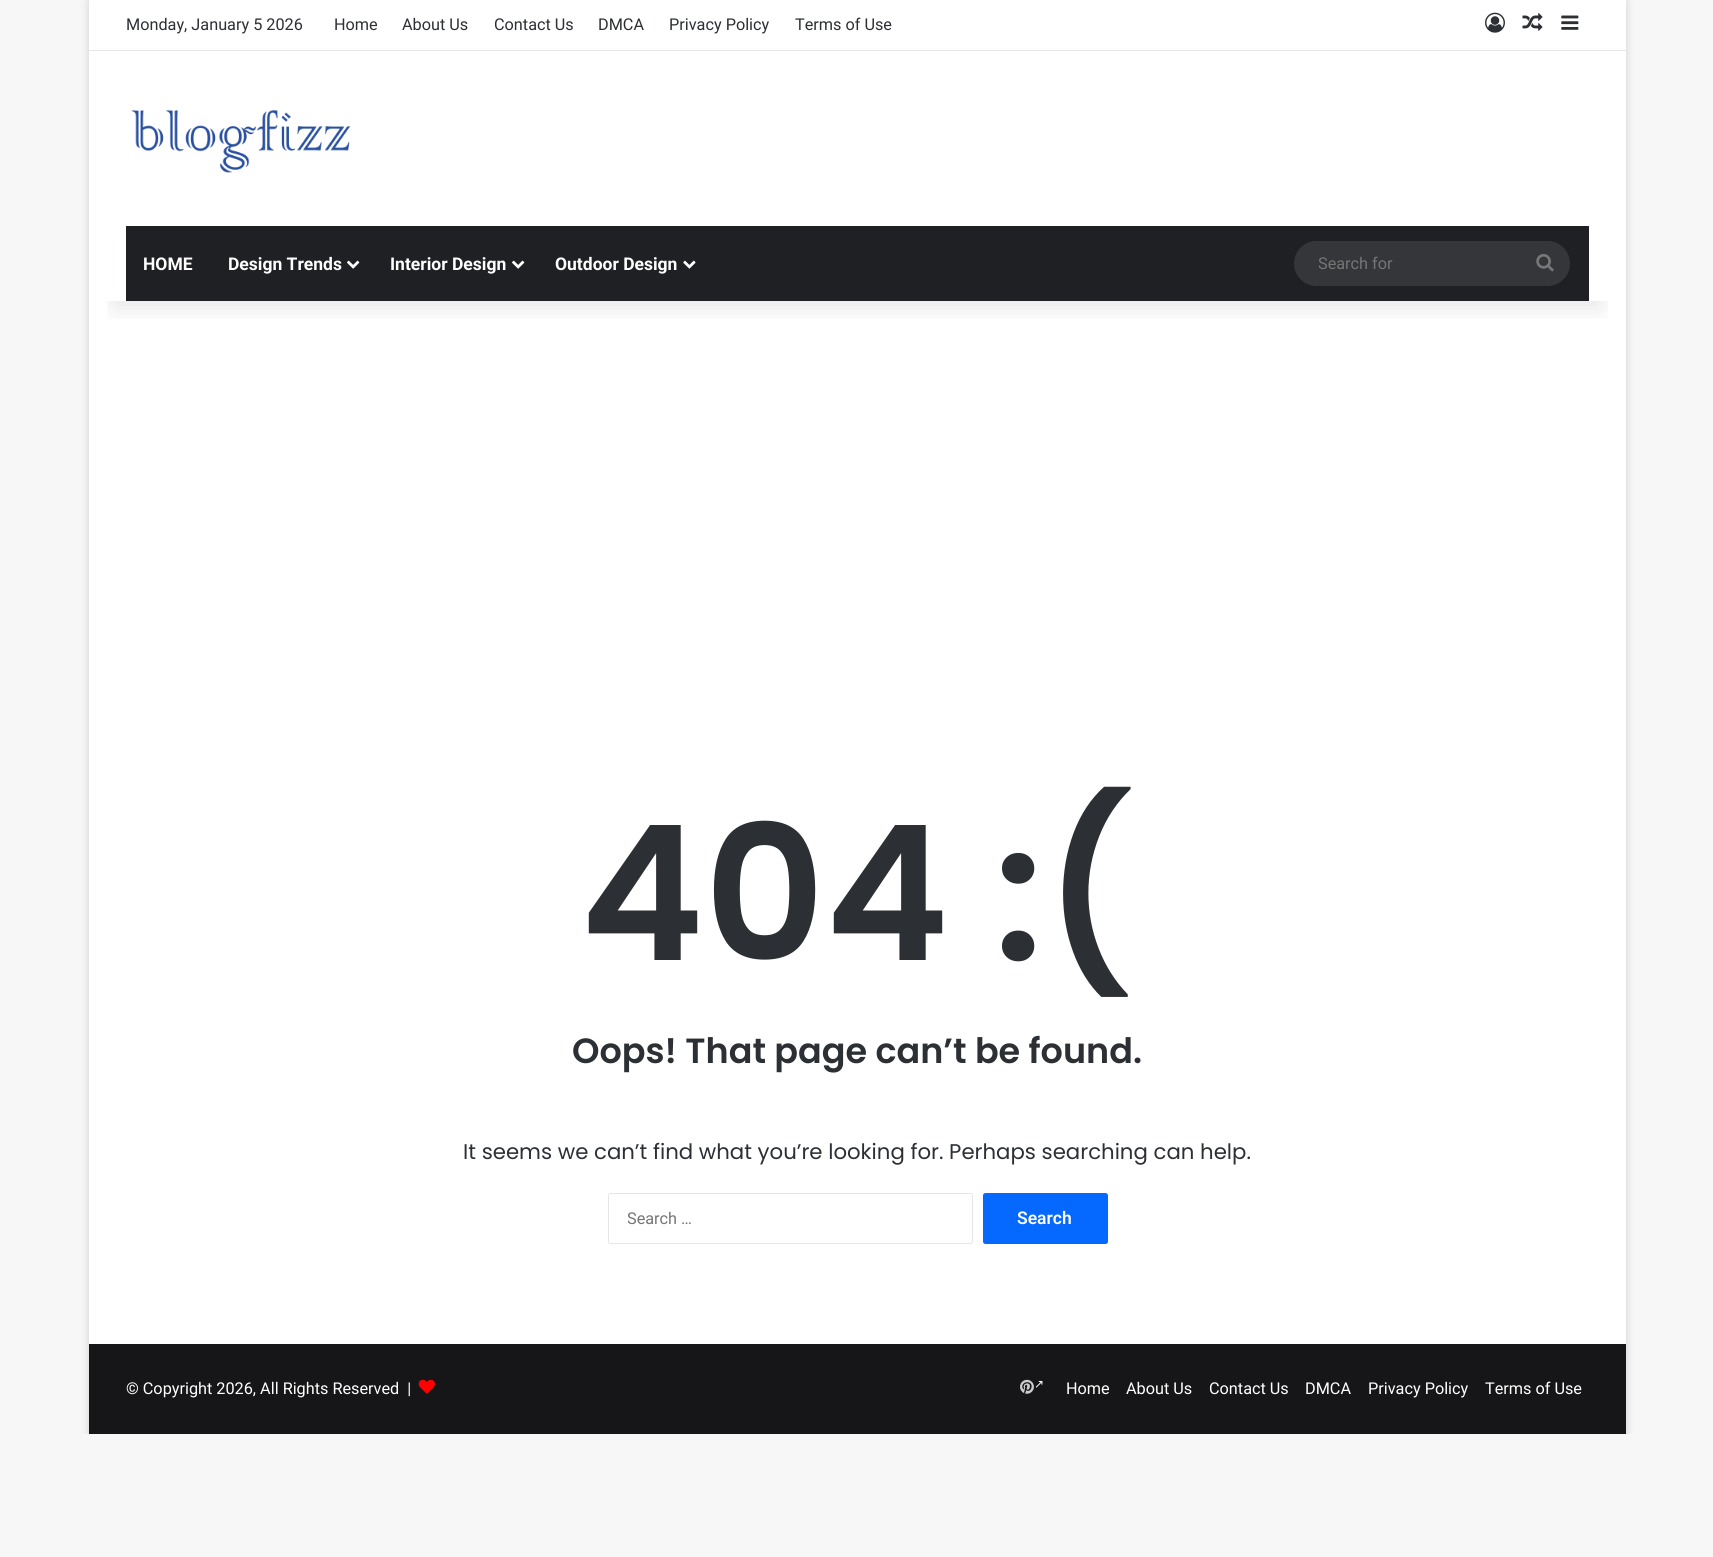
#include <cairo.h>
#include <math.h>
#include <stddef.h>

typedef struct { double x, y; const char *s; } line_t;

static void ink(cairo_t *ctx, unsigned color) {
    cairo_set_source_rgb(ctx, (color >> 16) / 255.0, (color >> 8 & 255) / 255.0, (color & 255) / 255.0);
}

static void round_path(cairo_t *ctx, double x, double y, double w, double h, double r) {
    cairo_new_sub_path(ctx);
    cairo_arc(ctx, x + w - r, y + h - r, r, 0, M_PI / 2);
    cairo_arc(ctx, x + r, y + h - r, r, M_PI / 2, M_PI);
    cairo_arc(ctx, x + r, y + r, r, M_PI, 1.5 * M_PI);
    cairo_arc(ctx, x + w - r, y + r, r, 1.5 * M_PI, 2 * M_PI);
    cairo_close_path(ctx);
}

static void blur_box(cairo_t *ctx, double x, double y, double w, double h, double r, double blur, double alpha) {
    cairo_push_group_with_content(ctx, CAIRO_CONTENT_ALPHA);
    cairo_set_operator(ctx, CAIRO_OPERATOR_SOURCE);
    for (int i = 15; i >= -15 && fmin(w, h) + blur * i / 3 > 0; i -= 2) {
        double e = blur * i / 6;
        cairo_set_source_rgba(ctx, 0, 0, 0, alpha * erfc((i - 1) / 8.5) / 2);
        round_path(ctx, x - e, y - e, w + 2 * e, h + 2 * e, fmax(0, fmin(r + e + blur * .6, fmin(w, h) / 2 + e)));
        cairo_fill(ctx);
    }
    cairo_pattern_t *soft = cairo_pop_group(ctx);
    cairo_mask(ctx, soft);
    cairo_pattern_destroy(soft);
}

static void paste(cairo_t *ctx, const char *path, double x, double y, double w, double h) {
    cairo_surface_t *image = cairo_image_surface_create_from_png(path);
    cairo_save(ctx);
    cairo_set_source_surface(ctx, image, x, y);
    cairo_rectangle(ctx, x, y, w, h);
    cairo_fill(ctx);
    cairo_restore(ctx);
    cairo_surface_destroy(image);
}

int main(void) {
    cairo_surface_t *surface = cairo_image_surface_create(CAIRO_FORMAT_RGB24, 1713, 1557);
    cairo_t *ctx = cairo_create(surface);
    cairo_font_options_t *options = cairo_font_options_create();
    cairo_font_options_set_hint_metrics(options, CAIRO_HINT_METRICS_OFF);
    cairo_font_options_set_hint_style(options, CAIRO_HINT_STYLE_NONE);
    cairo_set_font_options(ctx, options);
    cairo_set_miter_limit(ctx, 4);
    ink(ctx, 0xF7F7F7);
    cairo_paint(ctx);
    cairo_save(ctx);
    cairo_rectangle(ctx, 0, 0, 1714, 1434);
    cairo_clip(ctx);
    ink(ctx, 0xABABAB);
    blur_box(ctx, 89, 1, 1537, 1434, 0, 4.5, 0.5);
    cairo_restore(ctx);
    ink(ctx, 0xFFFFFF);
    cairo_rectangle(ctx, 89, 0, 1537, 1344);
    cairo_fill(ctx);
    cairo_save(ctx);
    cairo_rectangle(ctx, 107, 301, 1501, 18);
    cairo_clip(ctx);
    ink(ctx, 0x000000);
    blur_box(ctx, 114, 56, 1487, 252, 0, 12.5, 0.1);
    cairo_restore(ctx);
    ink(ctx, 0xE6E6E6);
    cairo_rectangle(ctx, 89, 50, 1537, 1);
    cairo_fill(ctx);
    cairo_select_font_face(ctx, "Roboto", CAIRO_FONT_SLANT_NORMAL, CAIRO_FONT_WEIGHT_NORMAL);
    cairo_set_font_size(ctx, 16.25);
    ink(ctx, 0x2C2F34);
    {
        static const line_t items[] = {
            {126, 30, "Monday, January 5 2026"},
            {334, 30, "Home"},
            {402, 30, "About Us"},
            {494, 30, "Contact Us"},
            {598, 30, "DMCA"},
            {669, 30, "Privacy Policy"},
            {795, 30, "Terms of Use"},
        };
        for (size_t i = 0; i < sizeof items / sizeof *items; i++) {
            cairo_move_to(ctx, items[i].x, items[i].y);
            cairo_show_text(ctx, items[i].s);
        }
    }
    paste(ctx, "media/1.png", 1485, 12, 20, 21);
    paste(ctx, "media/2.png", 1522, 13, 21, 18);
    paste(ctx, "media/3.png", 1561, 15, 18, 15);
    paste(ctx, "media/4.png", 131, 110, 220, 63);
    ink(ctx, 0x1F2024);
    cairo_rectangle(ctx, 126, 226, 1463, 75);
    cairo_fill(ctx);
    cairo_select_font_face(ctx, "Roboto", CAIRO_FONT_SLANT_NORMAL, CAIRO_FONT_WEIGHT_BOLD);
    cairo_set_font_size(ctx, 17.5);
    ink(ctx, 0xFFFFFF);
    cairo_move_to(ctx, 143, 270);
    cairo_show_text(ctx, "HOME");
    cairo_move_to(ctx, 228, 270);
    cairo_show_text(ctx, "Design Trends");
    paste(ctx, "media/5.png", 347, 260, 13, 9);
    cairo_move_to(ctx, 390, 270);
    cairo_show_text(ctx, "Interior Design");
    paste(ctx, "media/5.png", 512, 260, 13, 9);
    cairo_move_to(ctx, 555, 270);
    cairo_show_text(ctx, "Outdoor Design");
    paste(ctx, "media/6.png", 683, 260, 13, 9);
    ink(ctx, 0x35363A);
    round_path(ctx, 1294, 241, 276, 45, 22.5);
    cairo_fill(ctx);
    cairo_select_font_face(ctx, "Roboto", CAIRO_FONT_SLANT_NORMAL, CAIRO_FONT_WEIGHT_NORMAL);
    cairo_set_font_size(ctx, 16.25);
    ink(ctx, 0x757575);
    cairo_move_to(ctx, 1318, 269);
    cairo_show_text(ctx, "Search for");
    paste(ctx, "media/7.png", 1536, 254, 18, 18);
    cairo_select_font_face(ctx, "Poppins SemiBold", CAIRO_FONT_SLANT_NORMAL, CAIRO_FONT_WEIGHT_NORMAL);
    cairo_set_font_size(ctx, 187.5);
    ink(ctx, 0x2C2F34);
    cairo_move_to(ctx, 580, 960);
    cairo_show_text(ctx, "404 :(");
    cairo_set_font_size(ctx, 35);
    cairo_move_to(ctx, 572, 1063);
    cairo_show_text(ctx, "Oops! That page can’t be found.");
    cairo_select_font_face(ctx, "Poppins", CAIRO_FONT_SLANT_NORMAL, CAIRO_FONT_WEIGHT_NORMAL);
    cairo_set_font_size(ctx, 21.25);
    cairo_move_to(ctx, 463, 1159);
    cairo_show_text(ctx, "It seems we can’t find what you’re looking for. Perhaps searching can help.");
    round_path(ctx, 608.5, 1193.5, 364, 50, 2);
    ink(ctx, 0xE6E6E6);
    cairo_set_line_width(ctx, 1);
    cairo_stroke(ctx);
    cairo_save(ctx);
    cairo_rectangle(ctx, 628, 1209, 320, 19);
    cairo_clip(ctx);
    cairo_select_font_face(ctx, "Roboto", CAIRO_FONT_SLANT_NORMAL, CAIRO_FONT_WEIGHT_NORMAL);
    cairo_set_font_size(ctx, 16.25);
    ink(ctx, 0x757575);
    cairo_move_to(ctx, 627, 1224);
    cairo_show_text(ctx, "Search …");
    cairo_restore(ctx);
    ink(ctx, 0x0669FF);
    round_path(ctx, 983, 1193, 125, 51, 2.5);
    cairo_fill(ctx);
    cairo_select_font_face(ctx, "Roboto SemiBold", CAIRO_FONT_SLANT_NORMAL, CAIRO_FONT_WEIGHT_NORMAL);
    cairo_set_font_size(ctx, 17.5);
    ink(ctx, 0xFFFFFF);
    cairo_move_to(ctx, 1017, 1224);
    cairo_show_text(ctx, "Search");
    ink(ctx, 0x161619);
    cairo_rectangle(ctx, 89, 1344, 1537, 90);
    cairo_fill(ctx);
    cairo_select_font_face(ctx, "Roboto", CAIRO_FONT_SLANT_NORMAL, CAIRO_FONT_WEIGHT_NORMAL);
    cairo_set_font_size(ctx, 16.25);
    ink(ctx, 0xFFFFFF);
    cairo_move_to(ctx, 126, 1394);
    cairo_show_text(ctx, "© Copyright 2026, All Rights Reserved  |");
    paste(ctx, "media/8.png", 418, 1379, 17, 15);
    paste(ctx, "media/9.png", 1020, 1379, 14, 15);
    cairo_select_font_face(ctx, "DejaVu Sans", CAIRO_FONT_SLANT_NORMAL, CAIRO_FONT_WEIGHT_NORMAL);
    cairo_set_font_size(ctx, 12);
    cairo_move_to(ctx, 1034, 1388);
    cairo_show_text(ctx, "↗");
    cairo_select_font_face(ctx, "Roboto", CAIRO_FONT_SLANT_NORMAL, CAIRO_FONT_WEIGHT_NORMAL);
    cairo_set_font_size(ctx, 16.25);
    {
        static const line_t items[] = {
            {1066, 1394, "Home"},
            {1126, 1394, "About Us"},
            {1209, 1394, "Contact Us"},
            {1305, 1394, "DMCA"},
            {1368, 1394, "Privacy Policy"},
            {1485, 1394, "Terms of Use"},
        };
        for (size_t i = 0; i < sizeof items / sizeof *items; i++) {
            cairo_move_to(ctx, items[i].x, items[i].y);
            cairo_show_text(ctx, items[i].s);
        }
    }
    cairo_surface_write_to_png(surface, "image.png");
    cairo_font_options_destroy(options);
    cairo_destroy(ctx);
    cairo_surface_destroy(surface);
    return 0;
}
